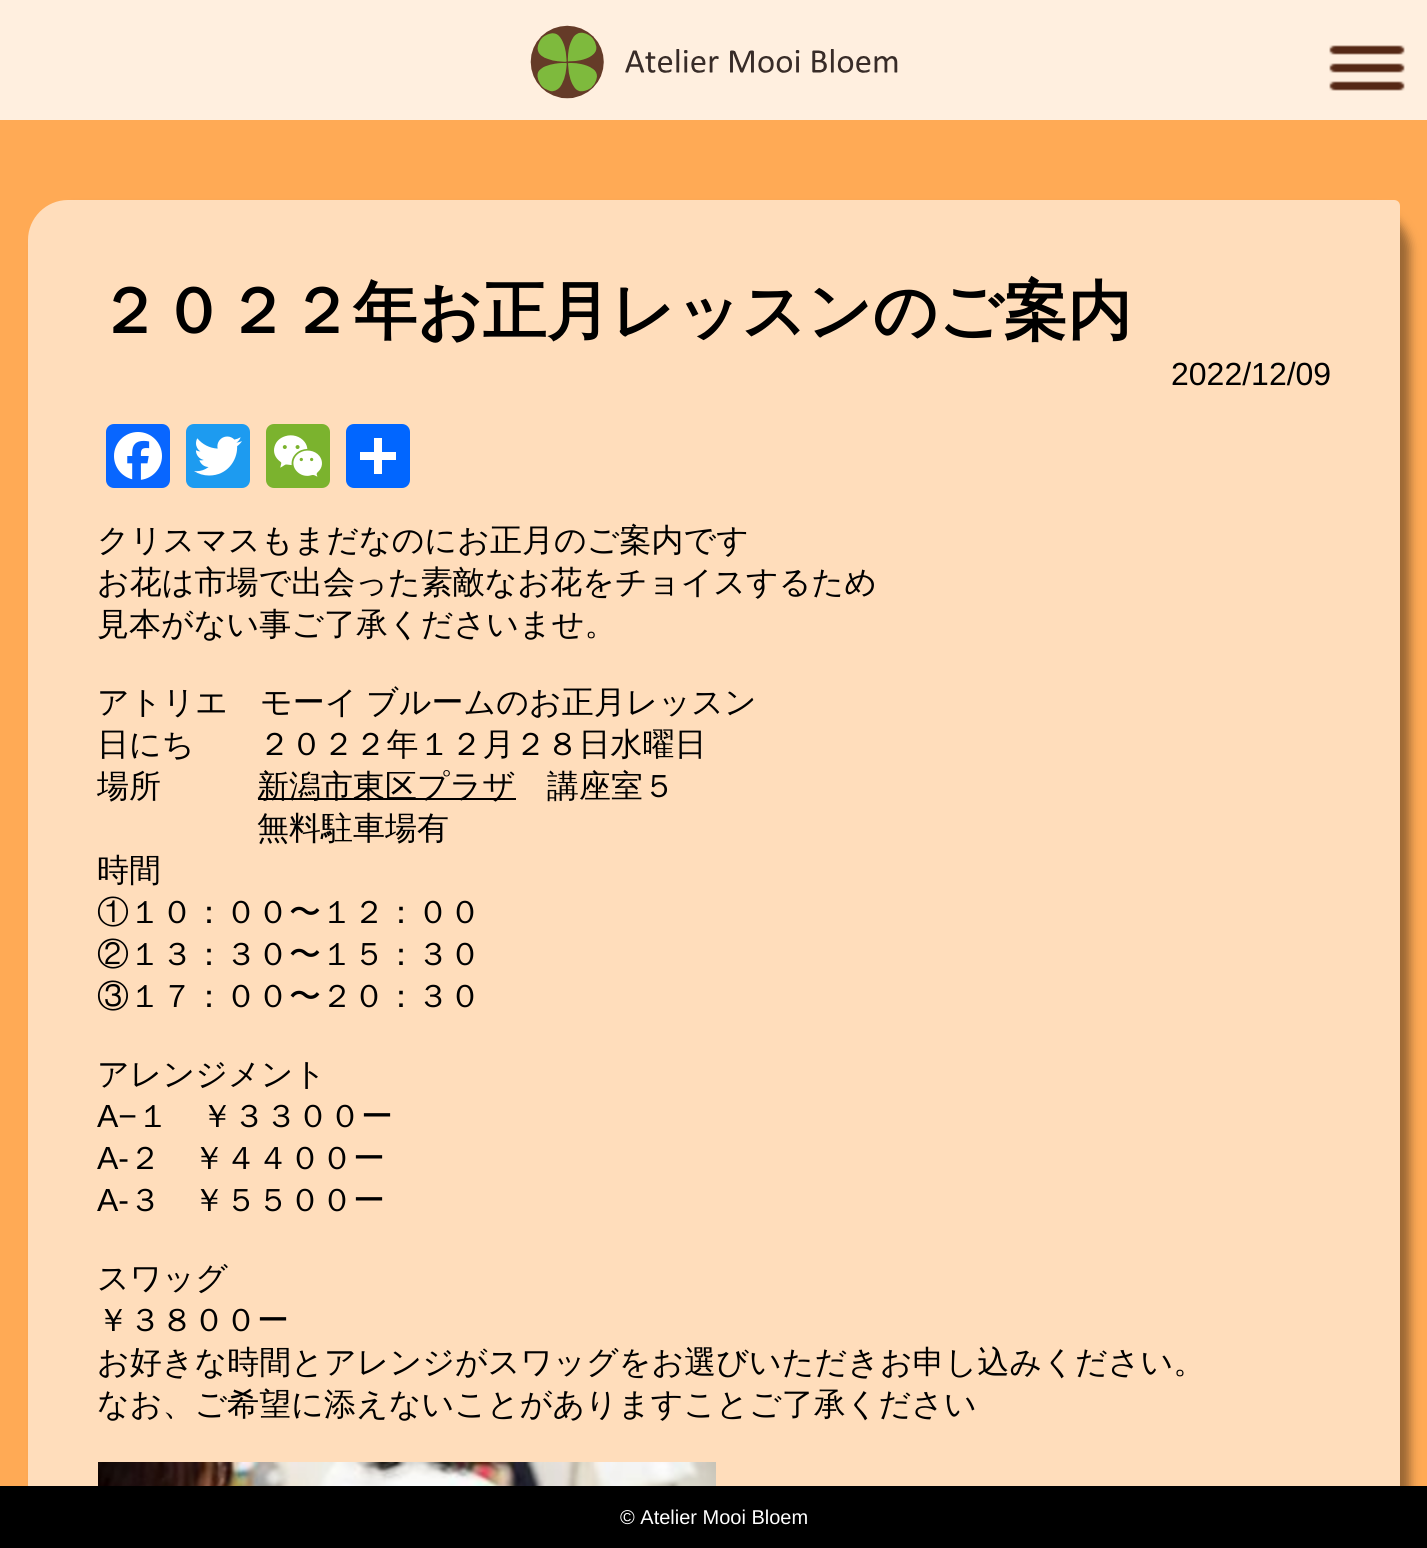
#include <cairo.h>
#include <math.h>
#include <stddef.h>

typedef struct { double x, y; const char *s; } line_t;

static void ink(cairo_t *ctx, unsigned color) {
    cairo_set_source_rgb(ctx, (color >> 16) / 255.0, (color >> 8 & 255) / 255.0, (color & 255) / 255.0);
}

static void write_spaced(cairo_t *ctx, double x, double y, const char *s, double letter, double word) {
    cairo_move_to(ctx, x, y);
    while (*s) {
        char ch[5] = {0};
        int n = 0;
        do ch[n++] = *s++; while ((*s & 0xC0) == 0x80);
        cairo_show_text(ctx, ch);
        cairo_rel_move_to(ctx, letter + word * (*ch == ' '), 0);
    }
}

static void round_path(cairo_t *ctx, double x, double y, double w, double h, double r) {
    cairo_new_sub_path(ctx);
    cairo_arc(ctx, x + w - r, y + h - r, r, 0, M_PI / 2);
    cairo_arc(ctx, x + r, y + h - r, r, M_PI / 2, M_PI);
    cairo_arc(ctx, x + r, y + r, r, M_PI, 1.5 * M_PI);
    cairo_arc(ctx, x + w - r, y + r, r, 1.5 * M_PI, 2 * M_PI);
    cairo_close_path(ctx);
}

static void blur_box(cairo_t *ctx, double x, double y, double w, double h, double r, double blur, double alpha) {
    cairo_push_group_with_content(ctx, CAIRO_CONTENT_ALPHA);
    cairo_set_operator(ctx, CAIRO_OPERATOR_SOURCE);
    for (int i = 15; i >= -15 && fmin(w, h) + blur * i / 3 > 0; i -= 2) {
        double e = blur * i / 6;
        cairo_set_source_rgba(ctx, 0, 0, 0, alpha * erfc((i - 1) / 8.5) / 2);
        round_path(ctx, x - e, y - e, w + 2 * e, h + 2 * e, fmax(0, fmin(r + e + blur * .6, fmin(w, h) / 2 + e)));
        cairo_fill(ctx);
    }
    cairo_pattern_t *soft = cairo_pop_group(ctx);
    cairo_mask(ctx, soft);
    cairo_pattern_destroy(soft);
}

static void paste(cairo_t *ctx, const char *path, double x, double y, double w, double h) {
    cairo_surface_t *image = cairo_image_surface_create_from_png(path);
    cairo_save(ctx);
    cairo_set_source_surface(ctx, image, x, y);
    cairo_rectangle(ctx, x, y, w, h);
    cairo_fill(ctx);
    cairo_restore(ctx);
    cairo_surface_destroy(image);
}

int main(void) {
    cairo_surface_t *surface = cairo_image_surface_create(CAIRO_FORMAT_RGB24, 1427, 1548);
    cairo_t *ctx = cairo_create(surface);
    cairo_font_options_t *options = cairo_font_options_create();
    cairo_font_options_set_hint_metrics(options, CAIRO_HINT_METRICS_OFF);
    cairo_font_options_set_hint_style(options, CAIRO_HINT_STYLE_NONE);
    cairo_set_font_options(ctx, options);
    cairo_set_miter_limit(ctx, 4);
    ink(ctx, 0xFFAA55);
    cairo_paint(ctx);
    ink(ctx, 0xFFEFDF);
    cairo_rectangle(ctx, 0, 0, 1427, 120);
    cairo_fill(ctx);
    paste(ctx, "media/1.png", 530, 25, 368, 74);
    paste(ctx, "media/2.png", 1329, 45, 76, 46);
    ink(ctx, 0x000000);
    blur_box(ctx, 38, 210, 1372, 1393, 40, 5, 0.4);
    ink(ctx, 0xFFDDBB);
    cairo_new_path(ctx);
    cairo_move_to(ctx, 68, 200);
    cairo_line_to(ctx, 1394, 200);
    cairo_curve_to(ctx, 1397.5, 200, 1400, 202.5, 1400, 206);
    cairo_line_to(ctx, 1400, 1548);
    cairo_curve_to(ctx, 1400, 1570, 1382, 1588, 1360, 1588);
    cairo_line_to(ctx, 34, 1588);
    cairo_curve_to(ctx, 30.5, 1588, 28, 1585.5, 28, 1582);
    cairo_line_to(ctx, 28, 240);
    cairo_curve_to(ctx, 28, 218, 46, 200, 68, 200);
    cairo_close_path(ctx);
    cairo_fill(ctx);
    cairo_select_font_face(ctx, "WenQuanYi Zen Hei", CAIRO_FONT_SLANT_NORMAL, CAIRO_FONT_WEIGHT_BOLD);
    cairo_set_font_size(ctx, 64);
    ink(ctx, 0x000000);
    cairo_move_to(ctx, 97, 333);
    cairo_show_text(ctx, "２０２２年お正月レッスンのご案内");
    cairo_select_font_face(ctx, "Liberation Sans", CAIRO_FONT_SLANT_NORMAL, CAIRO_FONT_WEIGHT_NORMAL);
    cairo_set_font_size(ctx, 32);
    cairo_move_to(ctx, 1171, 385);
    cairo_show_text(ctx, "2022/12/09");
    ink(ctx, 0x0866FF);
    round_path(ctx, 106, 424, 64, 64, 8);
    cairo_fill(ctx);
    paste(ctx, "media/3.png", 114, 432, 48, 48);
    ink(ctx, 0x1D9BF0);
    round_path(ctx, 186, 424, 64, 64, 8);
    cairo_fill(ctx);
    paste(ctx, "media/4.png", 194, 436, 48, 40);
    ink(ctx, 0x7BB32E);
    round_path(ctx, 266, 424, 64, 64, 8);
    cairo_fill(ctx);
    paste(ctx, "media/5.png", 274, 435, 48, 42);
    ink(ctx, 0x0166FF);
    round_path(ctx, 346, 424, 64, 64, 8);
    cairo_fill(ctx);
    ink(ctx, 0xFFFFFF);
    cairo_rectangle(ctx, 374, 438, 8, 36);
    cairo_fill(ctx);
    cairo_rectangle(ctx, 360, 452, 36, 8);
    cairo_fill(ctx);
    cairo_select_font_face(ctx, "WenQuanYi Zen Hei Medium", CAIRO_FONT_SLANT_NORMAL, CAIRO_FONT_WEIGHT_NORMAL);
    ink(ctx, 0x000000);
    {
        static const line_t items[] = {
            {97, 551, "クリスマスもまだなのにお正月のご案内です"},
            {97, 593, "お花は市場で出会った素敵なお花をチョイスするため"},
            {97, 635, "見本がない事ご了承くださいませ。"},
        };
        for (size_t i = 0; i < sizeof items / sizeof *items; i++) {
            cairo_move_to(ctx, items[i].x, items[i].y);
            cairo_show_text(ctx, items[i].s);
        }
    }
    write_spaced(ctx, 97, 713, "アトリエ　モーイ ブルームのお正月レッスン", 0, -1);
    cairo_move_to(ctx, 97, 755);
    cairo_show_text(ctx, "日にち　　２０２２年１２月２８日水曜日");
    cairo_move_to(ctx, 97, 797);
    cairo_show_text(ctx, "場所");
    cairo_rectangle(ctx, 258, 798, 258, 2);
    cairo_fill(ctx);
    {
        static const line_t items[] = {
            {257, 797, "新潟市東区プラザ"},
            {547, 797, "講座室５"},
            {257, 839, "無料駐車場有"},
            {97, 881, "時間"},
            {97, 923, "①１０：００〜１２：００"},
            {97, 965, "②１３：３０〜１５：３０"},
            {97, 1007, "③１７：００〜２０：３０"},
            {97, 1085, "アレンジメント"},
        };
        for (size_t i = 0; i < sizeof items / sizeof *items; i++) {
            cairo_move_to(ctx, items[i].x, items[i].y);
            cairo_show_text(ctx, items[i].s);
        }
    }
    cairo_select_font_face(ctx, "Liberation Sans", CAIRO_FONT_SLANT_NORMAL, CAIRO_FONT_WEIGHT_NORMAL);
    cairo_move_to(ctx, 97, 1127);
    cairo_show_text(ctx, "A−");
    cairo_select_font_face(ctx, "WenQuanYi Zen Hei Medium", CAIRO_FONT_SLANT_NORMAL, CAIRO_FONT_WEIGHT_NORMAL);
    cairo_move_to(ctx, 137, 1127);
    cairo_show_text(ctx, "１　￥３３００ー");
    cairo_select_font_face(ctx, "Liberation Sans", CAIRO_FONT_SLANT_NORMAL, CAIRO_FONT_WEIGHT_NORMAL);
    cairo_move_to(ctx, 97, 1169);
    cairo_show_text(ctx, "A-");
    cairo_select_font_face(ctx, "WenQuanYi Zen Hei Medium", CAIRO_FONT_SLANT_NORMAL, CAIRO_FONT_WEIGHT_NORMAL);
    cairo_move_to(ctx, 129, 1169);
    cairo_show_text(ctx, "２　￥４４００ー");
    cairo_select_font_face(ctx, "Liberation Sans", CAIRO_FONT_SLANT_NORMAL, CAIRO_FONT_WEIGHT_NORMAL);
    cairo_move_to(ctx, 97, 1211);
    cairo_show_text(ctx, "A-");
    cairo_select_font_face(ctx, "WenQuanYi Zen Hei Medium", CAIRO_FONT_SLANT_NORMAL, CAIRO_FONT_WEIGHT_NORMAL);
    {
        static const line_t items[] = {
            {129, 1211, "３　￥５５００ー"},
            {97, 1289, "スワッグ"},
            {97, 1331, "￥３８００ー"},
            {97, 1373, "お好きな時間とアレンジがスワッグをお選びいただきお申し込みください。"},
            {97, 1415, "なお、ご希望に添えないことがありますことご了承ください"},
        };
        for (size_t i = 0; i < sizeof items / sizeof *items; i++) {
            cairo_move_to(ctx, items[i].x, items[i].y);
            cairo_show_text(ctx, items[i].s);
        }
    }
    paste(ctx, "media/6.png", 98, 1462, 618, 24);
    cairo_rectangle(ctx, 0, 1486, 1427, 62);
    cairo_fill(ctx);
    cairo_select_font_face(ctx, "Liberation Sans", CAIRO_FONT_SLANT_NORMAL, CAIRO_FONT_WEIGHT_NORMAL);
    cairo_set_font_size(ctx, 20);
    ink(ctx, 0xFFFFFF);
    cairo_move_to(ctx, 620, 1524);
    cairo_show_text(ctx, "© Atelier Mooi Bloem");
    cairo_surface_write_to_png(surface, "image.png");
    cairo_font_options_destroy(options);
    cairo_destroy(ctx);
    cairo_surface_destroy(surface);
    return 0;
}
